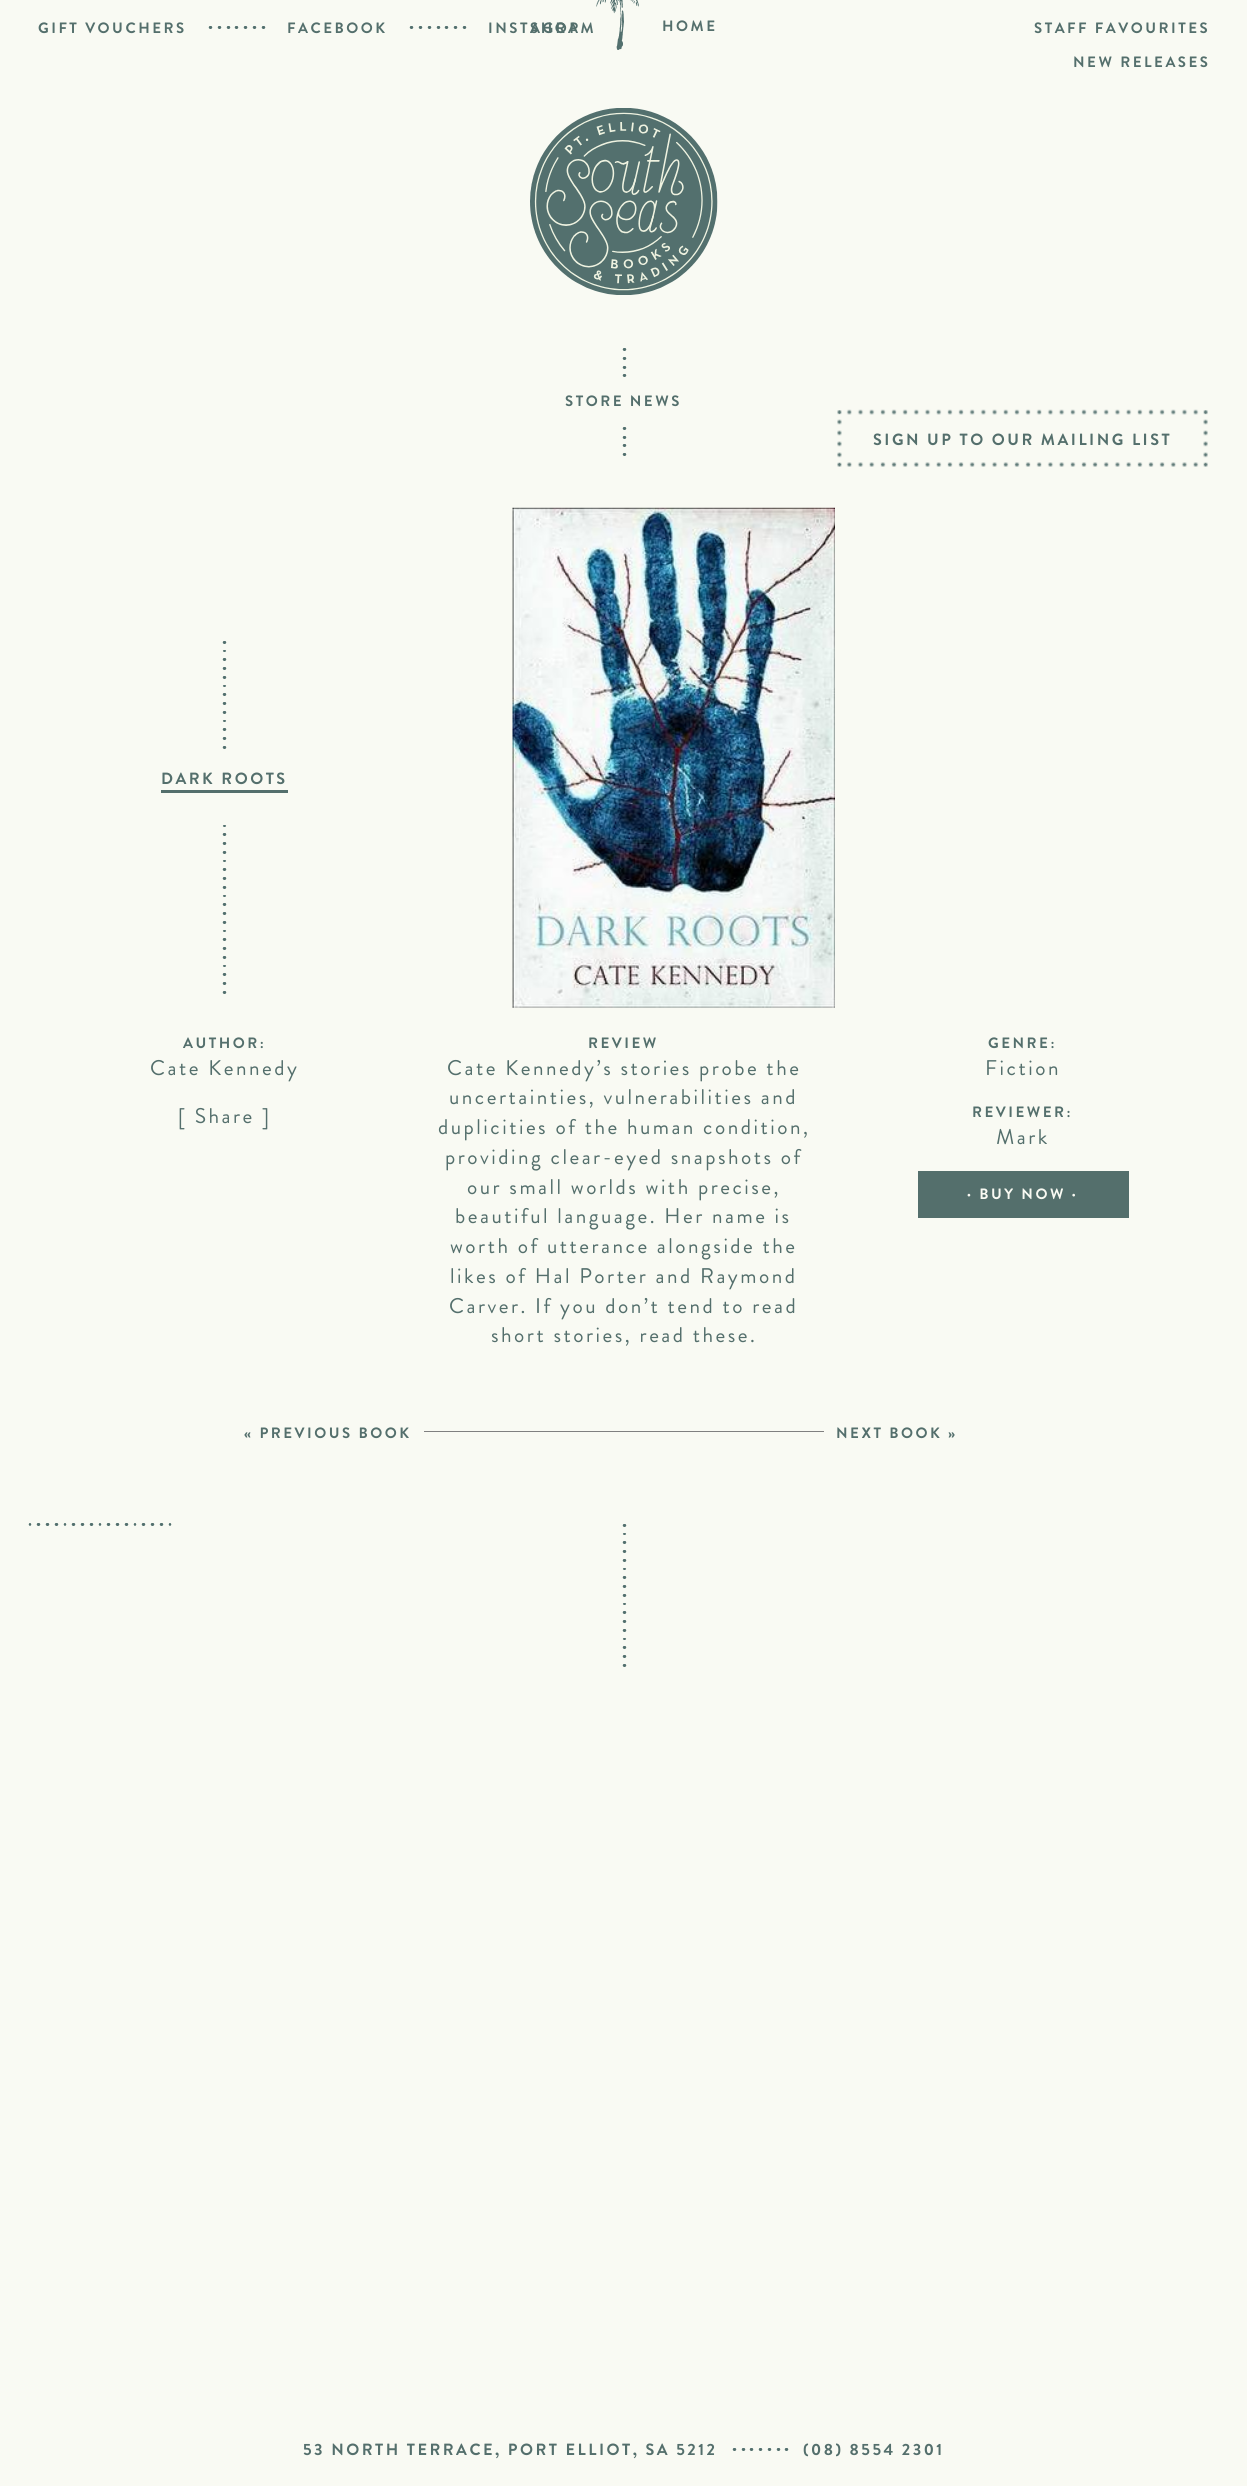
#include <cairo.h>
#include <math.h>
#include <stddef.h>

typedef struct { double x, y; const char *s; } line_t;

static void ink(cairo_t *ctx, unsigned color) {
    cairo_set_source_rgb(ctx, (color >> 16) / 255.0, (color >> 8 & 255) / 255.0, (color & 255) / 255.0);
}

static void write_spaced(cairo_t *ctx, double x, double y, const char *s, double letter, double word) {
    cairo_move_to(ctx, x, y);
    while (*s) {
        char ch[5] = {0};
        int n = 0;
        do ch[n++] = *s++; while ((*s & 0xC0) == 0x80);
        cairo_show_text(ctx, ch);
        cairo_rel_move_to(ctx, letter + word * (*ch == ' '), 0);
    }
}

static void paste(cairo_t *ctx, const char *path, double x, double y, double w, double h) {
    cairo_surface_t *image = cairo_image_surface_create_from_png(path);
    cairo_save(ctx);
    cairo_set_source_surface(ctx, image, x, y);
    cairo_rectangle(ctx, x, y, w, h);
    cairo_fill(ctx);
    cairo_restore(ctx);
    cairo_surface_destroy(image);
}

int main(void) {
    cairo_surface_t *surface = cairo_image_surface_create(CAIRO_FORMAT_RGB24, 1247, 2486);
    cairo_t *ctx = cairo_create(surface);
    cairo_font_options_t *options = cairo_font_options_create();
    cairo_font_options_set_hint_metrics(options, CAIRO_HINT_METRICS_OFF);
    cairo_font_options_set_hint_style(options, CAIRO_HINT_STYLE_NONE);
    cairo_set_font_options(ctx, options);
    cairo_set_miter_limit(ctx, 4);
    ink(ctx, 0xF9FAF3);
    cairo_paint(ctx);
    cairo_select_font_face(ctx, "Brandon Grotesque", CAIRO_FONT_SLANT_NORMAL, CAIRO_FONT_WEIGHT_BOLD);
    cairo_set_font_size(ctx, 15);
    ink(ctx, 0x546F6C);
    write_spaced(ctx, 38, 33, "GIFT VOUCHERS", 2.5, 0);
    paste(ctx, "media/1.png", 208, 26, 58, 3);
    write_spaced(ctx, 287, 33, "FACEBOOK", 2.5, 0);
    paste(ctx, "media/2.png", 409, 26, 58, 3);
    write_spaced(ctx, 488, 33, "INSTAGRAM", 2.5, 0);
    paste(ctx, "media/3.png", 596, 0, 43, 50);
    {
        static const line_t items[] = {
            {530, 33, "SHOP"},
            {662, 31, "HOME"},
            {1034, 33, "STAFF FAVOURITES"},
            {1073, 67, "NEW RELEASES"},
        };
        for (size_t i = 0; i < sizeof items / sizeof *items; i++) {
            write_spaced(ctx, items[i].x, items[i].y, items[i].s, 2.5, 0);
        }
    }
    paste(ctx, "media/4.png", 530, 108, 188, 187);
    paste(ctx, "media/5.png", 622, 348, 5, 108);
    ink(ctx, 0xF9FAF3);
    cairo_rectangle(ctx, 622, 383, 5, 38);
    cairo_fill(ctx);
    ink(ctx, 0x546F6C);
    write_spaced(ctx, 565, 406, "STORE NEWS", 2.5, 0);
    paste(ctx, "media/6.png", 837, 409, 371, 58);
    cairo_set_font_size(ctx, 16.25);
    write_spaced(ctx, 873, 445, "SIGN UP TO OUR MAILING LIST", 2.5, 0);
    paste(ctx, "media/7.png", 222, 641, 5, 353);
    ink(ctx, 0xF9FAF3);
    cairo_rectangle(ctx, 222, 755, 5, 64);
    cairo_fill(ctx);
    ink(ctx, 0x546F6C);
    write_spaced(ctx, 161, 784, "DARK ROOTS", 2.5, 0);
    cairo_rectangle(ctx, 161, 790, 127, 3);
    cairo_fill(ctx);
    paste(ctx, "media/8.png", 512, 507, 323, 501);
    cairo_set_font_size(ctx, 15);
    write_spaced(ctx, 183, 1048, "AUTHOR:", 2.5, 0);
    cairo_select_font_face(ctx, "Brandon Grotesque", CAIRO_FONT_SLANT_NORMAL, CAIRO_FONT_WEIGHT_NORMAL);
    cairo_set_font_size(ctx, 21.25);
    write_spaced(ctx, 150, 1075, "Cate Kennedy", 2.5, 0);
    write_spaced(ctx, 178, 1123, "[ Share ]", 2.5, 0);
    cairo_select_font_face(ctx, "Brandon Grotesque", CAIRO_FONT_SLANT_NORMAL, CAIRO_FONT_WEIGHT_BOLD);
    cairo_set_font_size(ctx, 15);
    write_spaced(ctx, 588, 1048, "REVIEW", 2.5, 0);
    cairo_select_font_face(ctx, "Brandon Grotesque", CAIRO_FONT_SLANT_NORMAL, CAIRO_FONT_WEIGHT_NORMAL);
    cairo_set_font_size(ctx, 21.25);
    {
        static const line_t items[] = {
            {447, 1075, "Cate Kennedy’s stories probe the"},
            {449, 1104, "uncertainties, vulnerabilities and"},
            {438, 1134, "duplicities of the human condition,"},
            {445, 1164, "providing clear-eyed snapshots of"},
            {467, 1194, "our small worlds with precise,"},
            {455, 1223, "beautiful language. Her name is"},
            {450, 1253, "worth of utterance alongside the"},
            {450, 1283, "likes of Hal Porter and Raymond"},
            {449, 1313, "Carver. If you don’t tend to read"},
            {491, 1342, "short stories, read these."},
        };
        for (size_t i = 0; i < sizeof items / sizeof *items; i++) {
            write_spaced(ctx, items[i].x, items[i].y, items[i].s, 2.5, 0);
        }
    }
    cairo_select_font_face(ctx, "Brandon Grotesque", CAIRO_FONT_SLANT_NORMAL, CAIRO_FONT_WEIGHT_BOLD);
    cairo_set_font_size(ctx, 15);
    write_spaced(ctx, 988, 1048, "GENRE:", 2.5, 0);
    cairo_select_font_face(ctx, "Brandon Grotesque", CAIRO_FONT_SLANT_NORMAL, CAIRO_FONT_WEIGHT_NORMAL);
    cairo_set_font_size(ctx, 21.25);
    write_spaced(ctx, 985, 1075, "Fiction", 2.5, 0);
    cairo_select_font_face(ctx, "Brandon Grotesque", CAIRO_FONT_SLANT_NORMAL, CAIRO_FONT_WEIGHT_BOLD);
    cairo_set_font_size(ctx, 15);
    write_spaced(ctx, 972, 1117, "REVIEWER:", 2.5, 0);
    cairo_select_font_face(ctx, "Brandon Grotesque", CAIRO_FONT_SLANT_NORMAL, CAIRO_FONT_WEIGHT_NORMAL);
    cairo_set_font_size(ctx, 21.25);
    write_spaced(ctx, 996, 1144, "Mark", 2.5, 0);
    cairo_rectangle(ctx, 918, 1171, 211, 47);
    cairo_fill(ctx);
    cairo_select_font_face(ctx, "Brandon Grotesque", CAIRO_FONT_SLANT_NORMAL, CAIRO_FONT_WEIGHT_BOLD);
    cairo_set_font_size(ctx, 15);
    ink(ctx, 0xF9FAF3);
    write_spaced(ctx, 967, 1199, "· BUY NOW ·", 2.5, 0);
    ink(ctx, 0x546F6C);
    write_spaced(ctx, 244, 1438, "« PREVIOUS BOOK", 2.5, 0);
    ink(ctx, 0x808080);
    cairo_rectangle(ctx, 424, 1431, 400, 1);
    cairo_fill(ctx);
    ink(ctx, 0x546F6C);
    write_spaced(ctx, 836, 1438, "NEXT BOOK »", 2.5, 0);
    paste(ctx, "media/9.png", 28, 1523, 144, 3);
    paste(ctx, "media/10.png", 622, 1524, 5, 143);
    cairo_set_font_size(ctx, 16.25);
    write_spaced(ctx, 303, 2455, "53 NORTH TERRACE, PORT ELLIOT, SA 5212", 2.5, 0);
    paste(ctx, "media/11.png", 732, 2448, 57, 3);
    write_spaced(ctx, 803, 2455, "(08) 8554 2301", 2.5, 0);
    cairo_surface_write_to_png(surface, "image.png");
    cairo_font_options_destroy(options);
    cairo_destroy(ctx);
    cairo_surface_destroy(surface);
    return 0;
}
